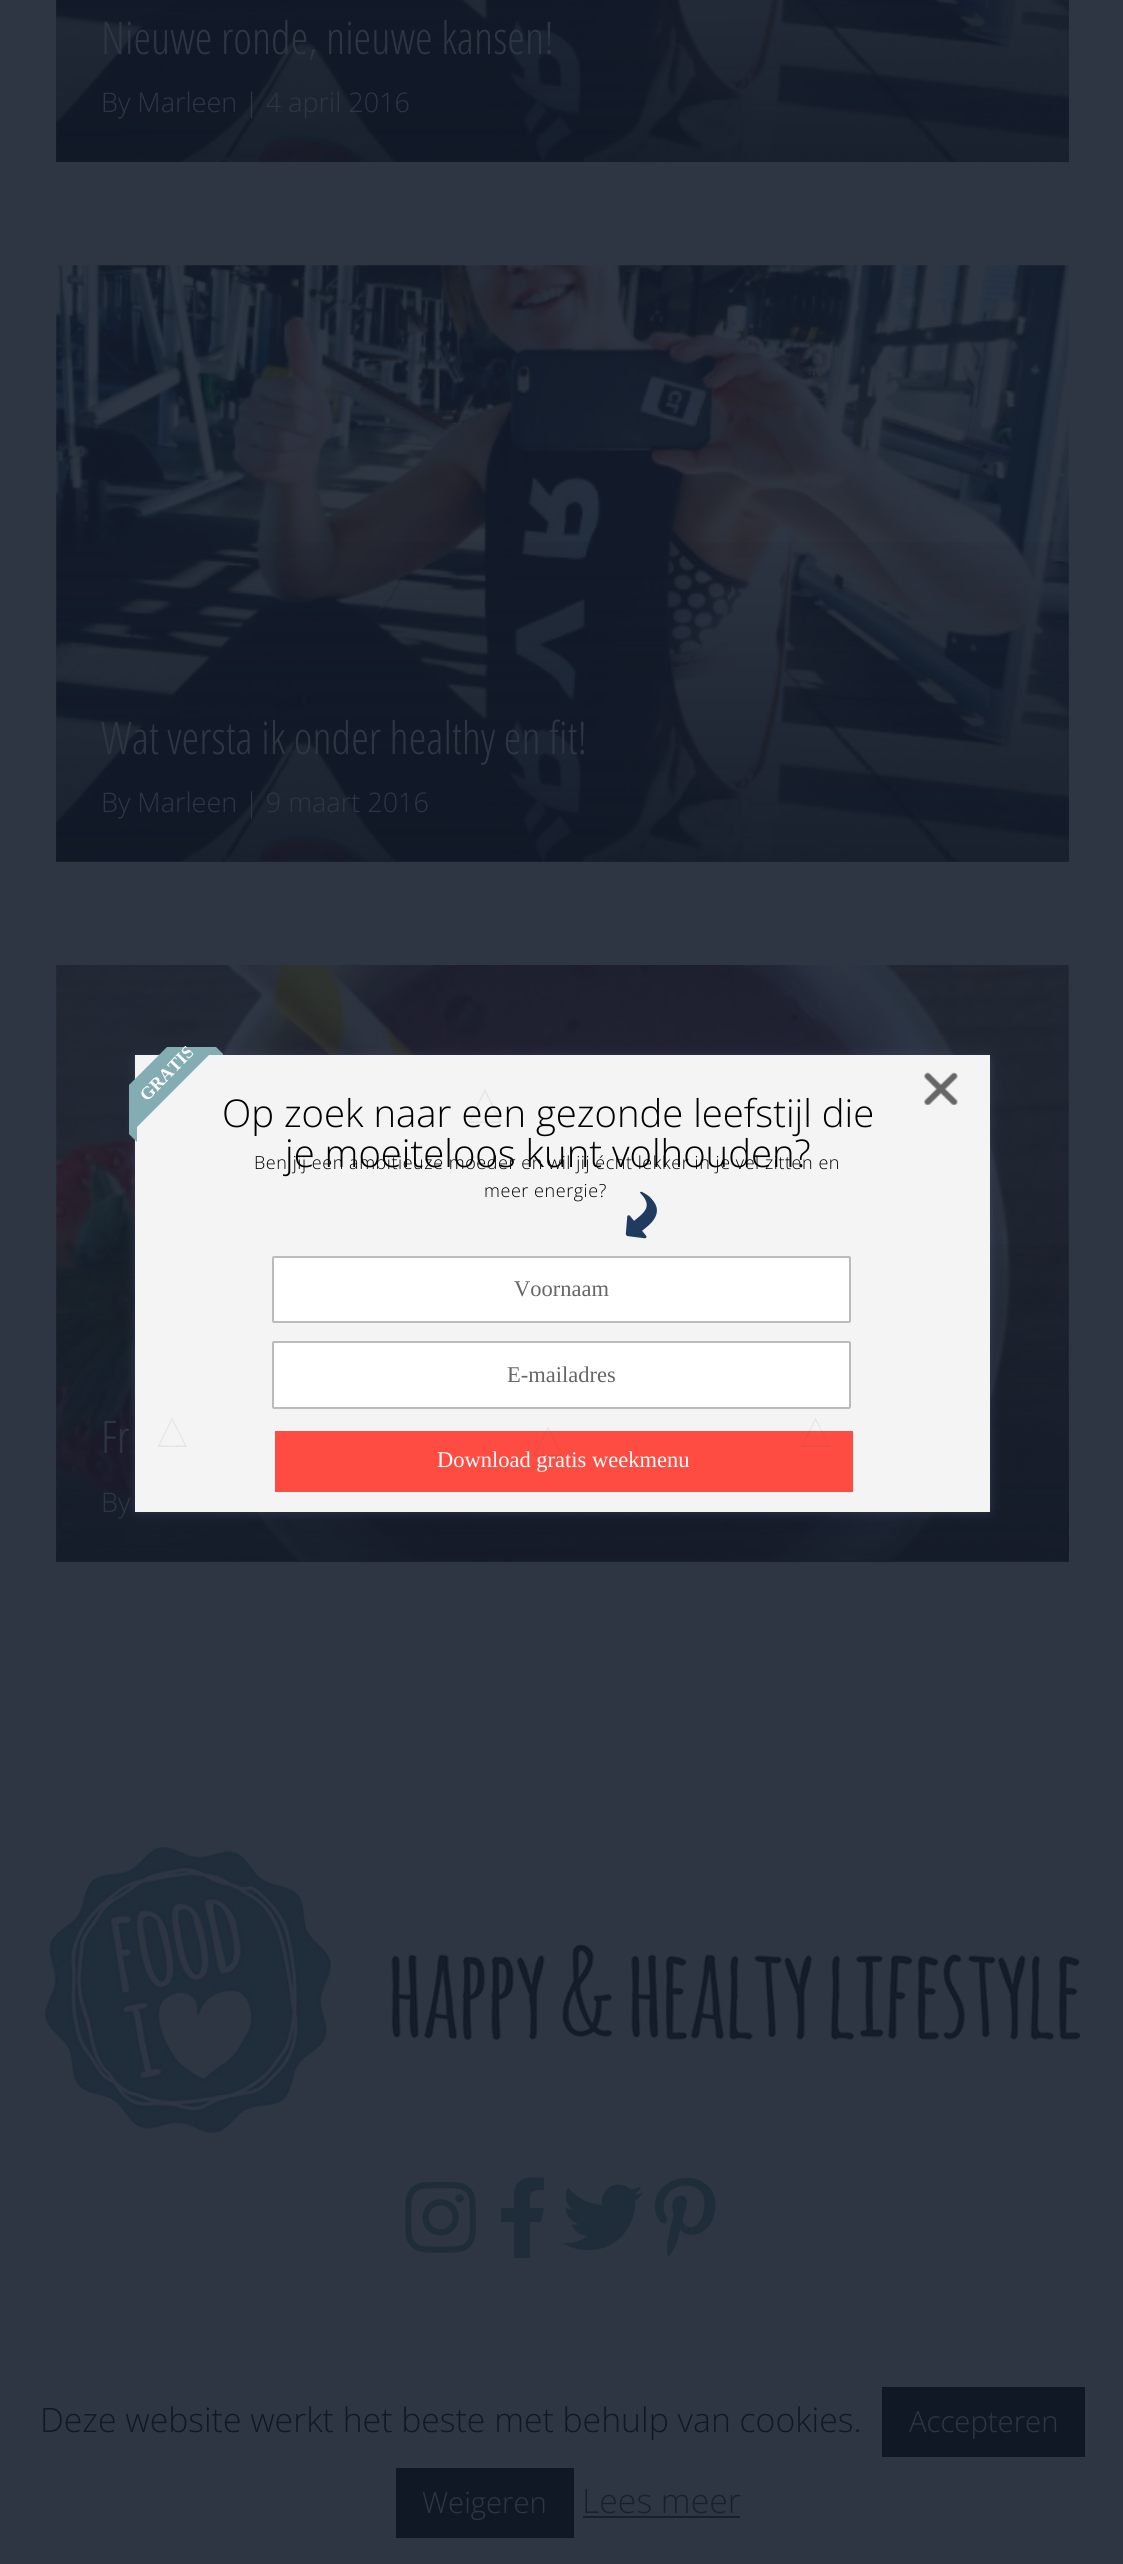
#include <cairo.h>
#include <math.h>
#include <stddef.h>


static void ink(cairo_t *ctx, unsigned color) {
    cairo_set_source_rgb(ctx, (color >> 16) / 255.0, (color >> 8 & 255) / 255.0, (color & 255) / 255.0);
}

static void write_spaced(cairo_t *ctx, double x, double y, const char *s, double letter, double word) {
    cairo_move_to(ctx, x, y);
    while (*s) {
        char ch[5] = {0};
        int n = 0;
        do ch[n++] = *s++; while ((*s & 0xC0) == 0x80);
        cairo_show_text(ctx, ch);
        cairo_rel_move_to(ctx, letter + word * (*ch == ' '), 0);
    }
}

static void round_path(cairo_t *ctx, double x, double y, double w, double h, double r) {
    cairo_new_sub_path(ctx);
    cairo_arc(ctx, x + w - r, y + h - r, r, 0, M_PI / 2);
    cairo_arc(ctx, x + r, y + h - r, r, M_PI / 2, M_PI);
    cairo_arc(ctx, x + r, y + r, r, M_PI, 1.5 * M_PI);
    cairo_arc(ctx, x + w - r, y + r, r, 1.5 * M_PI, 2 * M_PI);
    cairo_close_path(ctx);
}

static void blur_box(cairo_t *ctx, double x, double y, double w, double h, double r, double blur, double alpha) {
    cairo_push_group_with_content(ctx, CAIRO_CONTENT_ALPHA);
    cairo_set_operator(ctx, CAIRO_OPERATOR_SOURCE);
    for (int i = 15; i >= -15 && fmin(w, h) + blur * i / 3 > 0; i -= 2) {
        double e = blur * i / 6;
        cairo_set_source_rgba(ctx, 0, 0, 0, alpha * erfc((i - 1) / 8.5) / 2);
        round_path(ctx, x - e, y - e, w + 2 * e, h + 2 * e, fmax(0, fmin(r + e + blur * .6, fmin(w, h) / 2 + e)));
        cairo_fill(ctx);
    }
    cairo_pattern_t *soft = cairo_pop_group(ctx);
    cairo_mask(ctx, soft);
    cairo_pattern_destroy(soft);
}

static void paste(cairo_t *ctx, const char *path, double x, double y, double w, double h) {
    cairo_surface_t *image = cairo_image_surface_create_from_png(path);
    cairo_save(ctx);
    cairo_set_source_surface(ctx, image, x, y);
    cairo_rectangle(ctx, x, y, w, h);
    cairo_fill(ctx);
    cairo_restore(ctx);
    cairo_surface_destroy(image);
}

int main(void) {
    cairo_surface_t *surface = cairo_image_surface_create(CAIRO_FORMAT_RGB24, 1123, 2564);
    cairo_t *ctx = cairo_create(surface);
    cairo_font_options_t *options = cairo_font_options_create();
    cairo_font_options_set_hint_metrics(options, CAIRO_HINT_METRICS_OFF);
    cairo_font_options_set_hint_style(options, CAIRO_HINT_STYLE_NONE);
    cairo_set_font_options(ctx, options);
    cairo_set_miter_limit(ctx, 4);
    cairo_pattern_t *gradient;
    ink(ctx, 0x2E3644);
    cairo_paint(ctx);
    paste(ctx, "media/1.png", 56, 0, 1013, 162);
    gradient = cairo_pattern_create_linear(562, -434, 563, 162);
    cairo_pattern_add_color_stop_rgba(gradient, 0.4, 0.063, 0.094, 0.149, 0);
    cairo_pattern_add_color_stop_rgba(gradient, 1, 0.063, 0.094, 0.149, 0.7);
    cairo_set_source(ctx, gradient);
    cairo_pattern_destroy(gradient);
    cairo_rectangle(ctx, 56, 0, 1013, 162);
    cairo_fill(ctx);
    cairo_select_font_face(ctx, "Open Sans Condensed Light", CAIRO_FONT_SLANT_NORMAL, CAIRO_FONT_WEIGHT_NORMAL);
    cairo_set_font_size(ctx, 45);
    ink(ctx, 0x2E3644);
    cairo_move_to(ctx, 101, 54);
    cairo_show_text(ctx, "Nieuwe ronde, nieuwe kansen!");
    cairo_select_font_face(ctx, "Open Sans Light", CAIRO_FONT_SLANT_NORMAL, CAIRO_FONT_WEIGHT_NORMAL);
    cairo_set_font_size(ctx, 27);
    cairo_move_to(ctx, 101, 112);
    cairo_show_text(ctx, "By Marleen | 4 april 2016");
    paste(ctx, "media/2.png", 56, 265, 1013, 597);
    gradient = cairo_pattern_create_linear(562, 265, 563, 862);
    cairo_pattern_add_color_stop_rgba(gradient, 0.4, 0.063, 0.094, 0.149, 0);
    cairo_pattern_add_color_stop_rgba(gradient, 1, 0.063, 0.094, 0.149, 0.7);
    cairo_set_source(ctx, gradient);
    cairo_pattern_destroy(gradient);
    cairo_rectangle(ctx, 56, 542, 1013, 320);
    cairo_fill(ctx);
    cairo_select_font_face(ctx, "Open Sans Condensed Light", CAIRO_FONT_SLANT_NORMAL, CAIRO_FONT_WEIGHT_NORMAL);
    cairo_set_font_size(ctx, 45);
    ink(ctx, 0x2E3644);
    cairo_move_to(ctx, 101, 754);
    cairo_show_text(ctx, "Wat versta ik onder healthy en fit!");
    cairo_select_font_face(ctx, "Open Sans Light", CAIRO_FONT_SLANT_NORMAL, CAIRO_FONT_WEIGHT_NORMAL);
    cairo_set_font_size(ctx, 27);
    cairo_move_to(ctx, 101, 812);
    cairo_show_text(ctx, "By Marleen | 9 maart 2016");
    paste(ctx, "media/3.png", 56, 965, 1013, 597);
    gradient = cairo_pattern_create_linear(562, 965, 563, 1562);
    cairo_pattern_add_color_stop_rgba(gradient, 0.4, 0.063, 0.094, 0.149, 0);
    cairo_pattern_add_color_stop_rgba(gradient, 1, 0.063, 0.094, 0.149, 0.7);
    cairo_set_source(ctx, gradient);
    cairo_pattern_destroy(gradient);
    cairo_rectangle(ctx, 56, 1244, 1013, 318);
    cairo_fill(ctx);
    cairo_select_font_face(ctx, "Open Sans Condensed Light", CAIRO_FONT_SLANT_NORMAL, CAIRO_FONT_WEIGHT_NORMAL);
    cairo_set_font_size(ctx, 45);
    ink(ctx, 0x2E3644);
    cairo_move_to(ctx, 101, 1453);
    cairo_show_text(ctx, "Fr");
    cairo_select_font_face(ctx, "Open Sans Light", CAIRO_FONT_SLANT_NORMAL, CAIRO_FONT_WEIGHT_NORMAL);
    cairo_set_font_size(ctx, 27);
    cairo_move_to(ctx, 101, 1512);
    cairo_show_text(ctx, "By");
    paste(ctx, "media/4.png", 45, 1847, 1035, 286);
    paste(ctx, "media/5.png", 405, 2181, 71, 72);
    ink(ctx, 0x1F2D3B);
    cairo_new_path(ctx);
    cairo_move_to(ctx, 541, 2222);
    cairo_line_to(ctx, 530, 2222);
    cairo_line_to(ctx, 530, 2258);
    cairo_line_to(ctx, 514, 2258);
    cairo_line_to(ctx, 514, 2222);
    cairo_line_to(ctx, 501, 2222);
    cairo_line_to(ctx, 501, 2208);
    cairo_line_to(ctx, 514, 2208);
    cairo_line_to(ctx, 514, 2192);
    cairo_curve_to(ctx, 517, 2175, 532, 2177, 544, 2178);
    cairo_line_to(ctx, 544, 2190);
    cairo_curve_to(ctx, 528, 2190, 530, 2193, 530, 2208);
    cairo_line_to(ctx, 544, 2208);
    cairo_close_path(ctx);
    cairo_fill(ctx);
    paste(ctx, "media/6.png", 562, 2184, 82, 67);
    paste(ctx, "media/7.png", 654, 2177, 62, 80);
    ink(ctx, 0x565683);
    blur_box(ctx, 137, 1058, 851, 452, 0, 5.5, 0.6);
    ink(ctx, 0xF4F4F4);
    cairo_rectangle(ctx, 135, 1055, 855, 457);
    cairo_fill(ctx);
    ink(ctx, 0x83ADB2);
    cairo_new_path(ctx);
    cairo_move_to(ctx, 129, 1085);
    cairo_line_to(ctx, 167, 1047);
    cairo_line_to(ctx, 216, 1047);
    cairo_line_to(ctx, 223, 1054);
    cairo_line_to(ctx, 223, 1055);
    cairo_line_to(ctx, 209, 1055);
    cairo_line_to(ctx, 137, 1127);
    cairo_line_to(ctx, 137, 1142);
    cairo_line_to(ctx, 129, 1134);
    cairo_close_path(ctx);
    cairo_fill(ctx);
    cairo_save(ctx);
    cairo_new_path(ctx);
    cairo_move_to(ctx, 135.5, 1091.5);
    cairo_line_to(ctx, 182.5, 1043);
    cairo_line_to(ctx, 202, 1062);
    cairo_line_to(ctx, 155, 1110);
    cairo_close_path(ctx);
    cairo_clip(ctx);
    cairo_select_font_face(ctx, "Liberation Serif", CAIRO_FONT_SLANT_NORMAL, CAIRO_FONT_WEIGHT_BOLD);
    cairo_set_font_size(ctx, 18);
    ink(ctx, 0xFFFFFF);
    cairo_save(ctx);
    cairo_translate(ctx, 147, 1102);
    cairo_rotate(ctx, -45.8 * M_PI / 180);
    cairo_move_to(ctx, 0, 0);
    cairo_show_text(ctx, "GRATIS");
    cairo_restore(ctx);
    cairo_restore(ctx);
    cairo_set_source_rgba(ctx, 0.514, 0.678, 0.698, 0.2);
    cairo_new_path(ctx);
    cairo_move_to(ctx, 129.5, 1134.5);
    cairo_line_to(ctx, 137, 1142);
    cairo_line_to(ctx, 137, 1127);
    cairo_close_path(ctx);
    cairo_fill(ctx);
    cairo_new_path(ctx);
    cairo_move_to(ctx, 216.5, 1047.5);
    cairo_line_to(ctx, 223, 1054);
    cairo_line_to(ctx, 223, 1055);
    cairo_line_to(ctx, 209, 1055);
    cairo_close_path(ctx);
    cairo_fill(ctx);
    cairo_set_source_rgba(ctx, 0.271, 0.271, 0.271, 0.09);
    cairo_new_path(ctx);
    cairo_move_to(ctx, 485, 1092);
    cairo_line_to(ctx, 499.5, 1121.5);
    cairo_line_to(ctx, 470, 1121.5);
    cairo_line_to(ctx, 485, 1092);
    cairo_move_to(ctx, 485, 1089);
    cairo_line_to(ctx, 468, 1123);
    cairo_line_to(ctx, 502, 1123);
    cairo_close_path(ctx);
    cairo_fill(ctx);
    paste(ctx, "media/8.png", 924, 1072, 34, 33);
    cairo_set_font_size(ctx, 38.25);
    ink(ctx, 0x000000);
    cairo_move_to(ctx, 222, 1127);
    cairo_show_text(ctx, "Op zoek naar een gezonde leefstijl die");
    cairo_move_to(ctx, 285, 1167);
    cairo_show_text(ctx, "je moeiteloos kunt volhouden?");
    cairo_set_font_size(ctx, 18);
    write_spaced(ctx, 254, 1169, "Ben jij een ambitieuze moeder en wil jij écht lekker in je vel zitten en", 0.55, 0);
    write_spaced(ctx, 484, 1197, "meer energie?", 0.55, 0);
    paste(ctx, "media/9.png", 625, 1191, 32, 48);
    ink(ctx, 0xFFFFFF);
    round_path(ctx, 273, 1257, 577, 65, 1);
    cairo_fill_preserve(ctx);
    ink(ctx, 0xBBBBBB);
    cairo_stroke(ctx);
    cairo_select_font_face(ctx, "Liberation Serif", CAIRO_FONT_SLANT_NORMAL, CAIRO_FONT_WEIGHT_NORMAL);
    cairo_set_font_size(ctx, 22.5);
    ink(ctx, 0x666666);
    cairo_move_to(ctx, 514, 1296);
    cairo_show_text(ctx, "Voornaam");
    ink(ctx, 0xFFFFFF);
    round_path(ctx, 273, 1342, 577, 66, 1);
    cairo_fill_preserve(ctx);
    ink(ctx, 0xBBBBBB);
    cairo_stroke(ctx);
    ink(ctx, 0x666666);
    cairo_move_to(ctx, 507, 1382);
    cairo_show_text(ctx, "E-mailadres");
    cairo_save(ctx);
    cairo_rectangle(ctx, 158, 1418, 29, 29);
    cairo_clip(ctx);
    ink(ctx, 0xE4E4E4);
    cairo_new_path(ctx);
    cairo_move_to(ctx, 172, 1420);
    cairo_line_to(ctx, 185, 1445.5);
    cairo_line_to(ctx, 159.5, 1445.5);
    cairo_line_to(ctx, 172, 1420);
    cairo_move_to(ctx, 172, 1417.5);
    cairo_line_to(ctx, 157.5, 1447);
    cairo_line_to(ctx, 187, 1447);
    cairo_close_path(ctx);
    cairo_fill(ctx);
    cairo_restore(ctx);
    ink(ctx, 0xFE4C42);
    cairo_rectangle(ctx, 275, 1431, 578, 61);
    cairo_fill(ctx);
    cairo_set_source_rgba(ctx, 0.271, 0.271, 0.271, 0.09);
    cairo_new_path(ctx);
    cairo_move_to(ctx, 548, 1429);
    cairo_line_to(ctx, 560.5, 1454.5);
    cairo_line_to(ctx, 535, 1454.5);
    cairo_line_to(ctx, 548, 1429);
    cairo_move_to(ctx, 548, 1426.5);
    cairo_line_to(ctx, 533, 1456);
    cairo_line_to(ctx, 562.5, 1456);
    cairo_close_path(ctx);
    cairo_fill(ctx);
    cairo_new_path(ctx);
    cairo_move_to(ctx, 815.5, 1420);
    cairo_line_to(ctx, 828.5, 1445.5);
    cairo_line_to(ctx, 803, 1445.5);
    cairo_line_to(ctx, 815.5, 1420);
    cairo_move_to(ctx, 815.5, 1417.5);
    cairo_line_to(ctx, 801, 1447);
    cairo_line_to(ctx, 830, 1447);
    cairo_close_path(ctx);
    cairo_fill(ctx);
    ink(ctx, 0xFFFFFF);
    cairo_move_to(ctx, 437, 1467);
    cairo_show_text(ctx, "Download gratis weekmenu");
    cairo_select_font_face(ctx, "Open Sans Light", CAIRO_FONT_SLANT_NORMAL, CAIRO_FONT_WEIGHT_NORMAL);
    cairo_set_font_size(ctx, 33.75);
    ink(ctx, 0x101826);
    cairo_move_to(ctx, 40, 2432);
    cairo_show_text(ctx, "Deze website werkt het beste met behulp van cookies.");
    cairo_rectangle(ctx, 882, 2387, 203, 70);
    cairo_fill(ctx);
    cairo_set_font_size(ctx, 29.25);
    ink(ctx, 0x2E3644);
    cairo_move_to(ctx, 909, 2432);
    cairo_show_text(ctx, "Accepteren");
    ink(ctx, 0x101826);
    cairo_rectangle(ctx, 396, 2468, 178, 70);
    cairo_fill(ctx);
    ink(ctx, 0x2E3644);
    cairo_move_to(ctx, 422, 2513);
    cairo_show_text(ctx, "Weigeren");
    cairo_set_font_size(ctx, 33.75);
    ink(ctx, 0x18202E);
    cairo_move_to(ctx, 582, 2513);
    cairo_show_text(ctx, "Lees meer");
    cairo_rectangle(ctx, 583, 2516, 157, 2);
    cairo_fill(ctx);
    cairo_surface_write_to_png(surface, "image.png");
    cairo_font_options_destroy(options);
    cairo_destroy(ctx);
    cairo_surface_destroy(surface);
    return 0;
}
